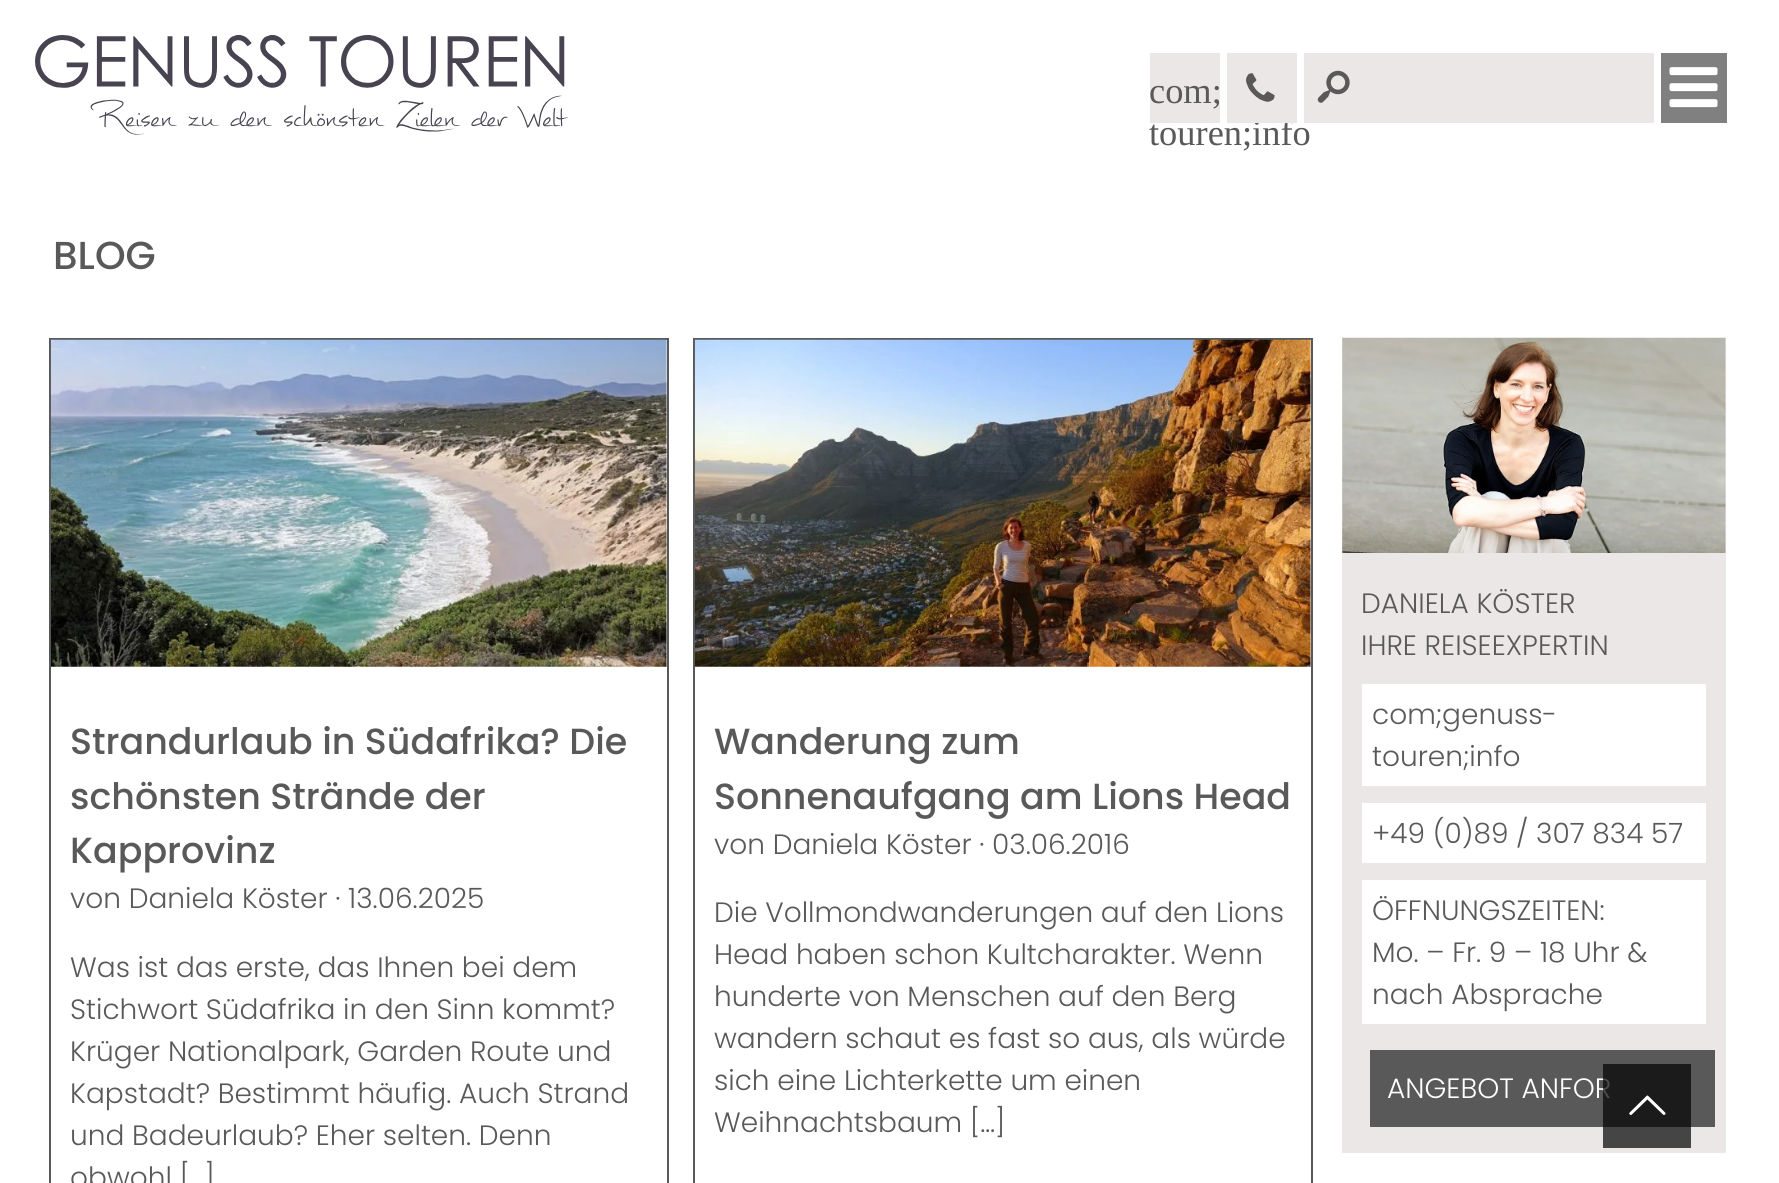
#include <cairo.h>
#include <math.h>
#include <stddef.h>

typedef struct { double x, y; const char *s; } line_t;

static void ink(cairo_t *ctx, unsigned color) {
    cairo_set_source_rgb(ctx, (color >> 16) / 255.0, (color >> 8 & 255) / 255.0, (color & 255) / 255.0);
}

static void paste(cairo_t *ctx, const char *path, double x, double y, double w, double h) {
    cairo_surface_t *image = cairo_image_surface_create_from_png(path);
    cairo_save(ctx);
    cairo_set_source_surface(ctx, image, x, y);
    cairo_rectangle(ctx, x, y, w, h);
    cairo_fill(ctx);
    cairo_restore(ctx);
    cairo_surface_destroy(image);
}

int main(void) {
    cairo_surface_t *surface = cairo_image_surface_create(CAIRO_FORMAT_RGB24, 1779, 1183);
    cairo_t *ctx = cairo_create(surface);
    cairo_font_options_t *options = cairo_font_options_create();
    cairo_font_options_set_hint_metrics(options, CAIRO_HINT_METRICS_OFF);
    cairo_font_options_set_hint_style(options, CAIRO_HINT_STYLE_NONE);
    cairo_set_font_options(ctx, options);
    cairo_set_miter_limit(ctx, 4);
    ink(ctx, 0xFFFFFF);
    cairo_paint(ctx);
    paste(ctx, "media/1.png", 35, 35, 534, 100);
    ink(ctx, 0xEBE7E6);
    cairo_rectangle(ctx, 1150, 53, 70, 70);
    cairo_fill(ctx);
    cairo_select_font_face(ctx, "Liberation Serif", CAIRO_FONT_SLANT_NORMAL, CAIRO_FONT_WEIGHT_NORMAL);
    cairo_set_font_size(ctx, 36.4);
    ink(ctx, 0x595959);
    cairo_move_to(ctx, 1149, 145);
    cairo_show_text(ctx, "touren;info");
    ink(ctx, 0xEBE7E6);
    cairo_rectangle(ctx, 1227, 53, 70, 70);
    cairo_fill(ctx);
    paste(ctx, "media/2.png", 1246, 73, 29, 29);
    ink(ctx, 0x595959);
    cairo_move_to(ctx, 1149, 103);
    cairo_show_text(ctx, "com;");
    ink(ctx, 0xEBE7E6);
    cairo_rectangle(ctx, 1304, 53, 350, 70);
    cairo_fill(ctx);
    paste(ctx, "media/3.png", 1317, 70, 33, 33);
    ink(ctx, 0x808080);
    cairo_rectangle(ctx, 1661, 53, 66, 70);
    cairo_fill(ctx);
    paste(ctx, "media/4.png", 1669, 67, 49, 41);
    cairo_select_font_face(ctx, "Poppins Medium", CAIRO_FONT_SLANT_NORMAL, CAIRO_FONT_WEIGHT_NORMAL);
    cairo_set_font_size(ctx, 39);
    ink(ctx, 0x595959);
    cairo_move_to(ctx, 53, 269);
    cairo_show_text(ctx, "BLOG");
    cairo_rectangle(ctx, 50, 339, 618, 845);
    cairo_stroke(ctx);
    paste(ctx, "media/5.png", 50, 339, 617, 328);
    cairo_set_font_size(ctx, 36.4);
    {
        static const line_t items[] = {
            {70, 754, "Strandurlaub in Südafrika? Die"},
            {70, 809, "schönsten Strände der"},
            {70, 863, "Kapprovinz"},
        };
        for (size_t i = 0; i < sizeof items / sizeof *items; i++) {
            cairo_move_to(ctx, items[i].x, items[i].y);
            cairo_show_text(ctx, items[i].s);
        }
    }
    cairo_select_font_face(ctx, "Poppins Light", CAIRO_FONT_SLANT_NORMAL, CAIRO_FONT_WEIGHT_NORMAL);
    cairo_set_font_size(ctx, 28);
    {
        static const line_t items[] = {
            {70, 908, "von Daniela Köster · 13.06.2025"},
            {70, 977, "Was ist das erste, das Ihnen bei dem"},
            {70, 1019, "Stichwort Südafrika in den Sinn kommt?"},
            {70, 1061, "Krüger Nationalpark, Garden Route und"},
            {70, 1103, "Kapstadt? Bestimmt häufig. Auch Strand"},
            {70, 1145, "und Badeurlaub? Eher selten. Denn"},
            {70, 1187, "obwohl […]"},
        };
        for (size_t i = 0; i < sizeof items / sizeof *items; i++) {
            cairo_move_to(ctx, items[i].x, items[i].y);
            cairo_show_text(ctx, items[i].s);
        }
    }
    cairo_rectangle(ctx, 694, 339, 618, 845);
    cairo_stroke(ctx);
    paste(ctx, "media/6.png", 694, 339, 617, 328);
    cairo_select_font_face(ctx, "Poppins Medium", CAIRO_FONT_SLANT_NORMAL, CAIRO_FONT_WEIGHT_NORMAL);
    cairo_set_font_size(ctx, 36.4);
    cairo_move_to(ctx, 714, 754);
    cairo_show_text(ctx, "Wanderung zum");
    cairo_move_to(ctx, 714, 809);
    cairo_show_text(ctx, "Sonnenaufgang am Lions Head");
    cairo_select_font_face(ctx, "Poppins Light", CAIRO_FONT_SLANT_NORMAL, CAIRO_FONT_WEIGHT_NORMAL);
    cairo_set_font_size(ctx, 28);
    {
        static const line_t items[] = {
            {714, 854, "von Daniela Köster · 03.06.2016"},
            {714, 922, "Die Vollmondwanderungen auf den Lions"},
            {714, 964, "Head haben schon Kultcharakter. Wenn"},
            {714, 1006, "hunderte von Menschen auf den Berg"},
            {714, 1048, "wandern schaut es fast so aus, als würde"},
            {714, 1090, "sich eine Lichterkette um einen"},
            {714, 1132, "Weihnachtsbaum […]"},
        };
        for (size_t i = 0; i < sizeof items / sizeof *items; i++) {
            cairo_move_to(ctx, items[i].x, items[i].y);
            cairo_show_text(ctx, items[i].s);
        }
    }
    ink(ctx, 0xEBE7E6);
    cairo_rectangle(ctx, 1342, 338, 384, 815);
    cairo_fill(ctx);
    paste(ctx, "media/7.png", 1342, 337, 384, 216);
    ink(ctx, 0x595959);
    cairo_move_to(ctx, 1361, 613);
    cairo_show_text(ctx, "DANIELA KÖSTER");
    cairo_move_to(ctx, 1361, 655);
    cairo_show_text(ctx, "IHRE REISEEXPERTIN");
    ink(ctx, 0xFFFFFF);
    cairo_rectangle(ctx, 1362, 684, 344, 102);
    cairo_fill(ctx);
    ink(ctx, 0x595959);
    cairo_move_to(ctx, 1372, 724);
    cairo_show_text(ctx, "com;genuss-");
    cairo_move_to(ctx, 1372, 766);
    cairo_show_text(ctx, "touren;info");
    ink(ctx, 0xFFFFFF);
    cairo_rectangle(ctx, 1362, 803, 344, 60);
    cairo_fill(ctx);
    ink(ctx, 0x595959);
    cairo_move_to(ctx, 1372, 843);
    cairo_show_text(ctx, "+49 (0)89 / 307 834 57");
    ink(ctx, 0xFFFFFF);
    cairo_rectangle(ctx, 1362, 880, 344, 144);
    cairo_fill(ctx);
    ink(ctx, 0x595959);
    {
        static const line_t items[] = {
            {1372, 920, "ÖFFNUNGSZEITEN:"},
            {1372, 962, "Mo. – Fr. 9 – 18 Uhr &"},
            {1372, 1004, "nach Absprache"},
        };
        for (size_t i = 0; i < sizeof items / sizeof *items; i++) {
            cairo_move_to(ctx, items[i].x, items[i].y);
            cairo_show_text(ctx, items[i].s);
        }
    }
    cairo_rectangle(ctx, 1370, 1050, 345, 77);
    cairo_fill(ctx);
    ink(ctx, 0xFFFFFF);
    cairo_move_to(ctx, 1387, 1098);
    cairo_show_text(ctx, "ANGEBOT ANFOR");
    cairo_set_source_rgba(ctx, 0, 0, 0, 0.7);
    cairo_rectangle(ctx, 1603, 1064, 88, 84);
    cairo_fill(ctx);
    paste(ctx, "media/8.png", 1629, 1095, 37, 20);
    cairo_surface_write_to_png(surface, "image.png");
    cairo_font_options_destroy(options);
    cairo_destroy(ctx);
    cairo_surface_destroy(surface);
    return 0;
}
